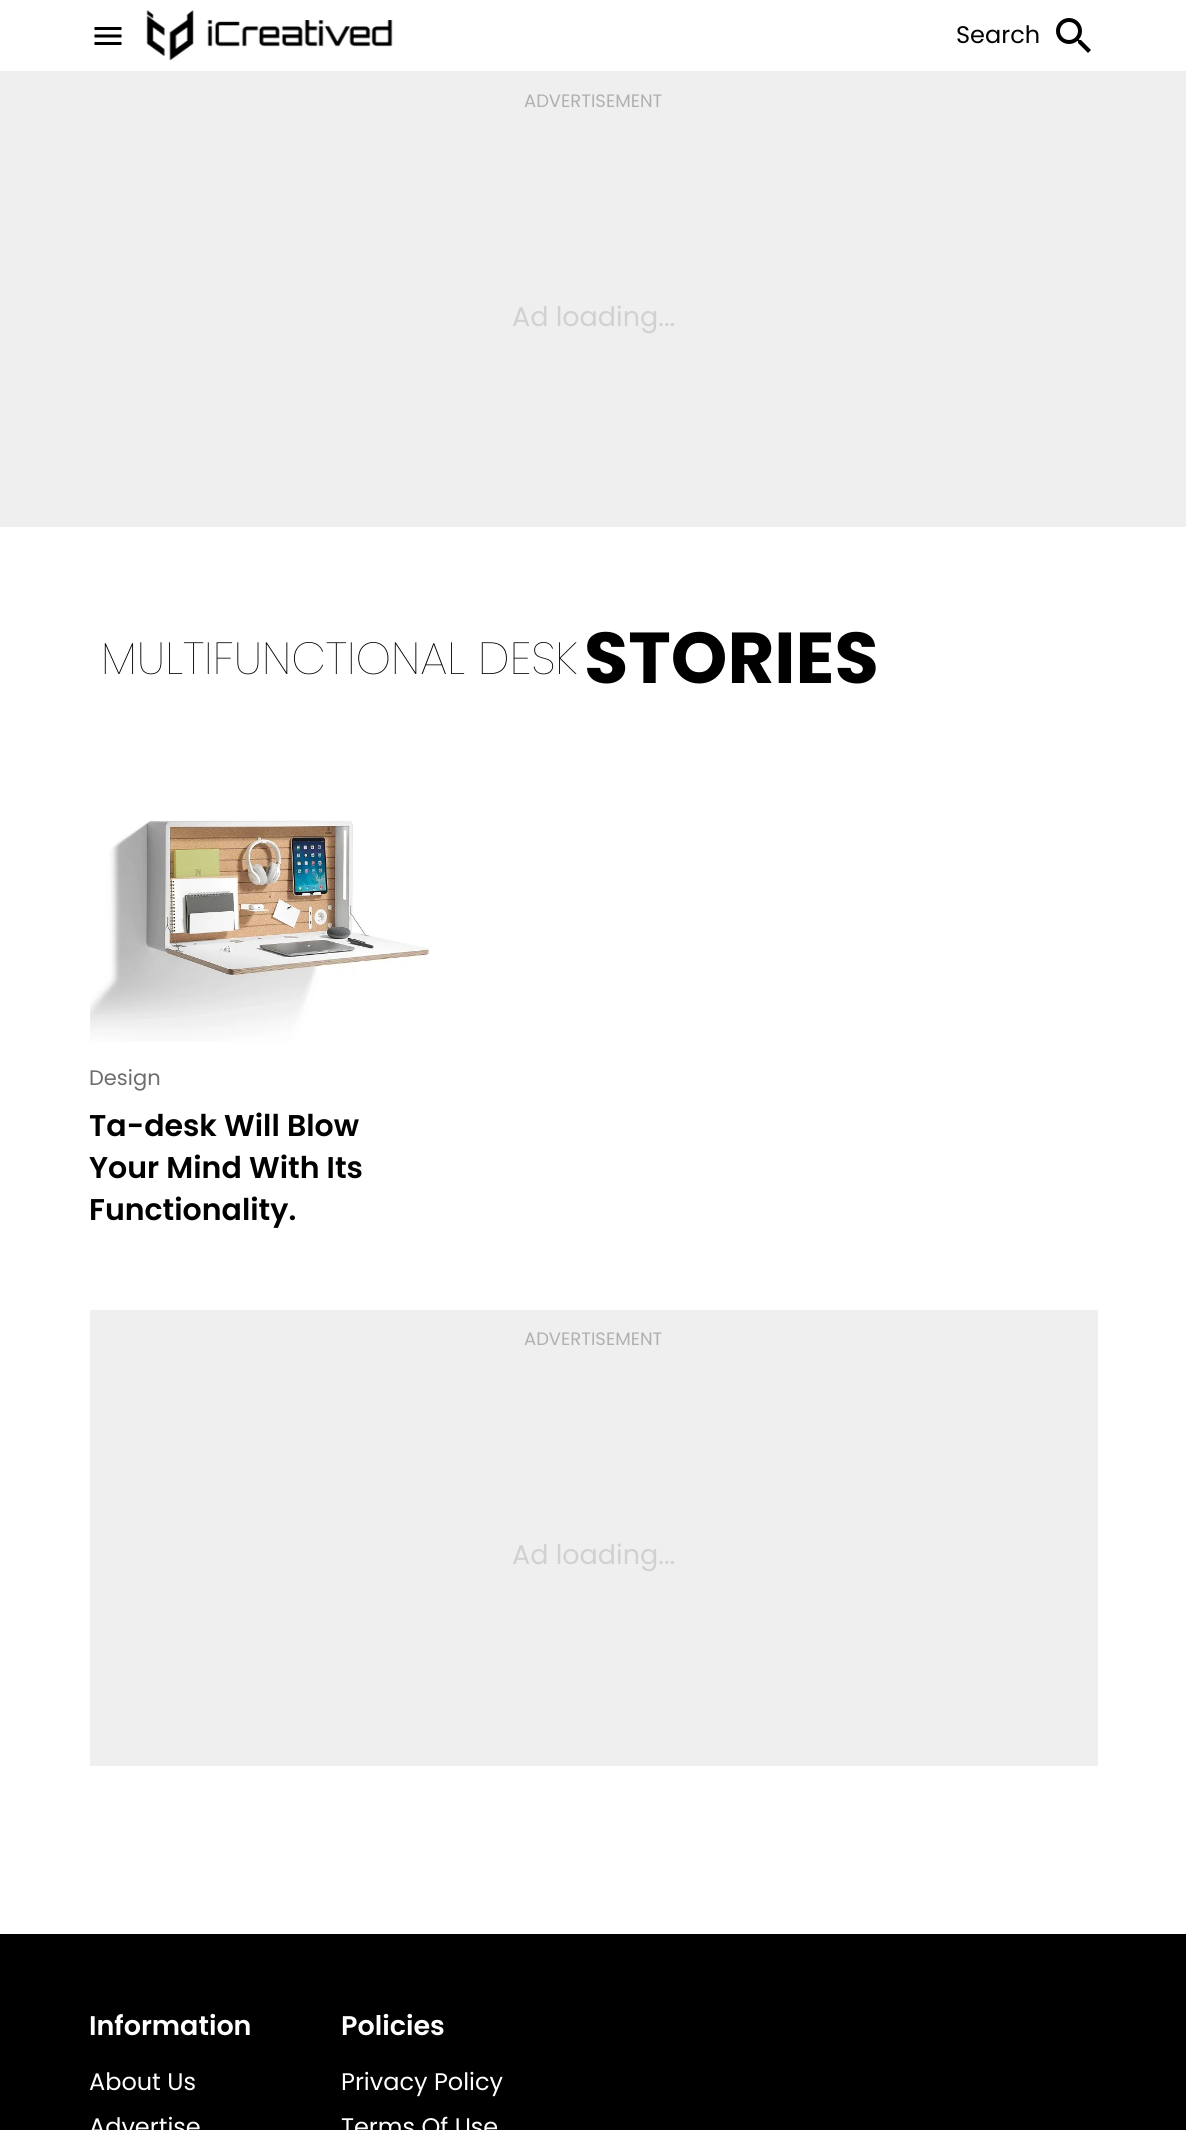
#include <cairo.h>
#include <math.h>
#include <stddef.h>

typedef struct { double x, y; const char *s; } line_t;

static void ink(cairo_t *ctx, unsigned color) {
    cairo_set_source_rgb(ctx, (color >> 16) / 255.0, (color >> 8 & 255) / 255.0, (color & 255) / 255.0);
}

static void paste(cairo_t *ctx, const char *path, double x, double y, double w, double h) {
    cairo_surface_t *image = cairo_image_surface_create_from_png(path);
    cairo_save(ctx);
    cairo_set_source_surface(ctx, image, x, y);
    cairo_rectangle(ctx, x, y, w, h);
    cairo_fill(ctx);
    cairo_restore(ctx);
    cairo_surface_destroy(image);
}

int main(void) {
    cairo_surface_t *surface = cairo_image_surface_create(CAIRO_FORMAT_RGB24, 1186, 2130);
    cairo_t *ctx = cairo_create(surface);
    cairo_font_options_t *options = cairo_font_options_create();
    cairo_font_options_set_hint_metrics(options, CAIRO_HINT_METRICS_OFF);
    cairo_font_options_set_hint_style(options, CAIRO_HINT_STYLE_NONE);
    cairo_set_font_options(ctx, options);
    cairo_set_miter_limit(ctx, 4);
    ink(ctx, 0xFFFFFF);
    cairo_paint(ctx);
    paste(ctx, "media/1.png", 94, 27, 28, 18);
    paste(ctx, "media/2.png", 146, 10, 247, 51);
    cairo_select_font_face(ctx, "Poppins", CAIRO_FONT_SLANT_NORMAL, CAIRO_FONT_WEIGHT_NORMAL);
    cairo_set_font_size(ctx, 24);
    ink(ctx, 0x000000);
    cairo_move_to(ctx, 956, 43);
    cairo_show_text(ctx, "Search");
    paste(ctx, "media/3.png", 1056, 18, 35, 35);
    ink(ctx, 0xEFEFEF);
    cairo_rectangle(ctx, 0, 71, 1186, 456);
    cairo_fill(ctx);
    cairo_set_font_size(ctx, 18);
    ink(ctx, 0xB0B0B0);
    cairo_move_to(ctx, 524, 107);
    cairo_show_text(ctx, "ADVERTISEMENT");
    cairo_set_font_size(ctx, 27);
    ink(ctx, 0xD1D1D1);
    cairo_move_to(ctx, 512, 326);
    cairo_show_text(ctx, "Ad loading...");
    cairo_select_font_face(ctx, "Poppins ExtraLight", CAIRO_FONT_SLANT_NORMAL, CAIRO_FONT_WEIGHT_NORMAL);
    cairo_set_font_size(ctx, 45);
    ink(ctx, 0x000000);
    cairo_move_to(ctx, 101, 674);
    cairo_show_text(ctx, "MULTIFUNCTIONAL DESK");
    cairo_select_font_face(ctx, "Poppins", CAIRO_FONT_SLANT_NORMAL, CAIRO_FONT_WEIGHT_BOLD);
    cairo_set_font_size(ctx, 72);
    cairo_move_to(ctx, 584, 683);
    cairo_show_text(ctx, "STORIES");
    paste(ctx, "media/4.png", 90, 820, 339, 222);
    cairo_select_font_face(ctx, "Poppins", CAIRO_FONT_SLANT_NORMAL, CAIRO_FONT_WEIGHT_NORMAL);
    cairo_set_font_size(ctx, 21);
    ink(ctx, 0x6D6D6D);
    cairo_move_to(ctx, 89, 1085);
    cairo_show_text(ctx, "Design");
    cairo_select_font_face(ctx, "Poppins SemiBold", CAIRO_FONT_SLANT_NORMAL, CAIRO_FONT_WEIGHT_NORMAL);
    cairo_set_font_size(ctx, 30);
    ink(ctx, 0x000000);
    {
        static const line_t items[] = {
            {89, 1136, "Ta-desk Will Blow"},
            {89, 1178, "Your Mind With Its"},
            {89, 1220, "Functionality."},
        };
        for (size_t i = 0; i < sizeof items / sizeof *items; i++) {
            cairo_move_to(ctx, items[i].x, items[i].y);
            cairo_show_text(ctx, items[i].s);
        }
    }
    ink(ctx, 0xEFEFEF);
    cairo_rectangle(ctx, 90, 1310, 1008, 456);
    cairo_fill(ctx);
    cairo_select_font_face(ctx, "Poppins", CAIRO_FONT_SLANT_NORMAL, CAIRO_FONT_WEIGHT_NORMAL);
    cairo_set_font_size(ctx, 18);
    ink(ctx, 0xB0B0B0);
    cairo_move_to(ctx, 524, 1345);
    cairo_show_text(ctx, "ADVERTISEMENT");
    cairo_set_font_size(ctx, 27);
    ink(ctx, 0xD1D1D1);
    cairo_move_to(ctx, 512, 1564);
    cairo_show_text(ctx, "Ad loading...");
    ink(ctx, 0x000000);
    cairo_rectangle(ctx, 0, 1934, 1186, 196);
    cairo_fill(ctx);
    cairo_select_font_face(ctx, "Poppins SemiBold", CAIRO_FONT_SLANT_NORMAL, CAIRO_FONT_WEIGHT_NORMAL);
    ink(ctx, 0xFFFFFF);
    cairo_move_to(ctx, 89, 2035);
    cairo_show_text(ctx, "Information");
    cairo_select_font_face(ctx, "Poppins", CAIRO_FONT_SLANT_NORMAL, CAIRO_FONT_WEIGHT_NORMAL);
    cairo_set_font_size(ctx, 24);
    cairo_move_to(ctx, 89, 2090);
    cairo_show_text(ctx, "About Us");
    cairo_move_to(ctx, 89, 2135);
    cairo_show_text(ctx, "Advertise");
    cairo_select_font_face(ctx, "Poppins SemiBold", CAIRO_FONT_SLANT_NORMAL, CAIRO_FONT_WEIGHT_NORMAL);
    cairo_set_font_size(ctx, 27);
    cairo_move_to(ctx, 341, 2035);
    cairo_show_text(ctx, "Policies");
    cairo_select_font_face(ctx, "Poppins", CAIRO_FONT_SLANT_NORMAL, CAIRO_FONT_WEIGHT_NORMAL);
    cairo_set_font_size(ctx, 24);
    cairo_move_to(ctx, 341, 2090);
    cairo_show_text(ctx, "Privacy Policy");
    cairo_move_to(ctx, 341, 2135);
    cairo_show_text(ctx, "Terms Of Use");
    cairo_surface_write_to_png(surface, "image.png");
    cairo_font_options_destroy(options);
    cairo_destroy(ctx);
    cairo_surface_destroy(surface);
    return 0;
}
